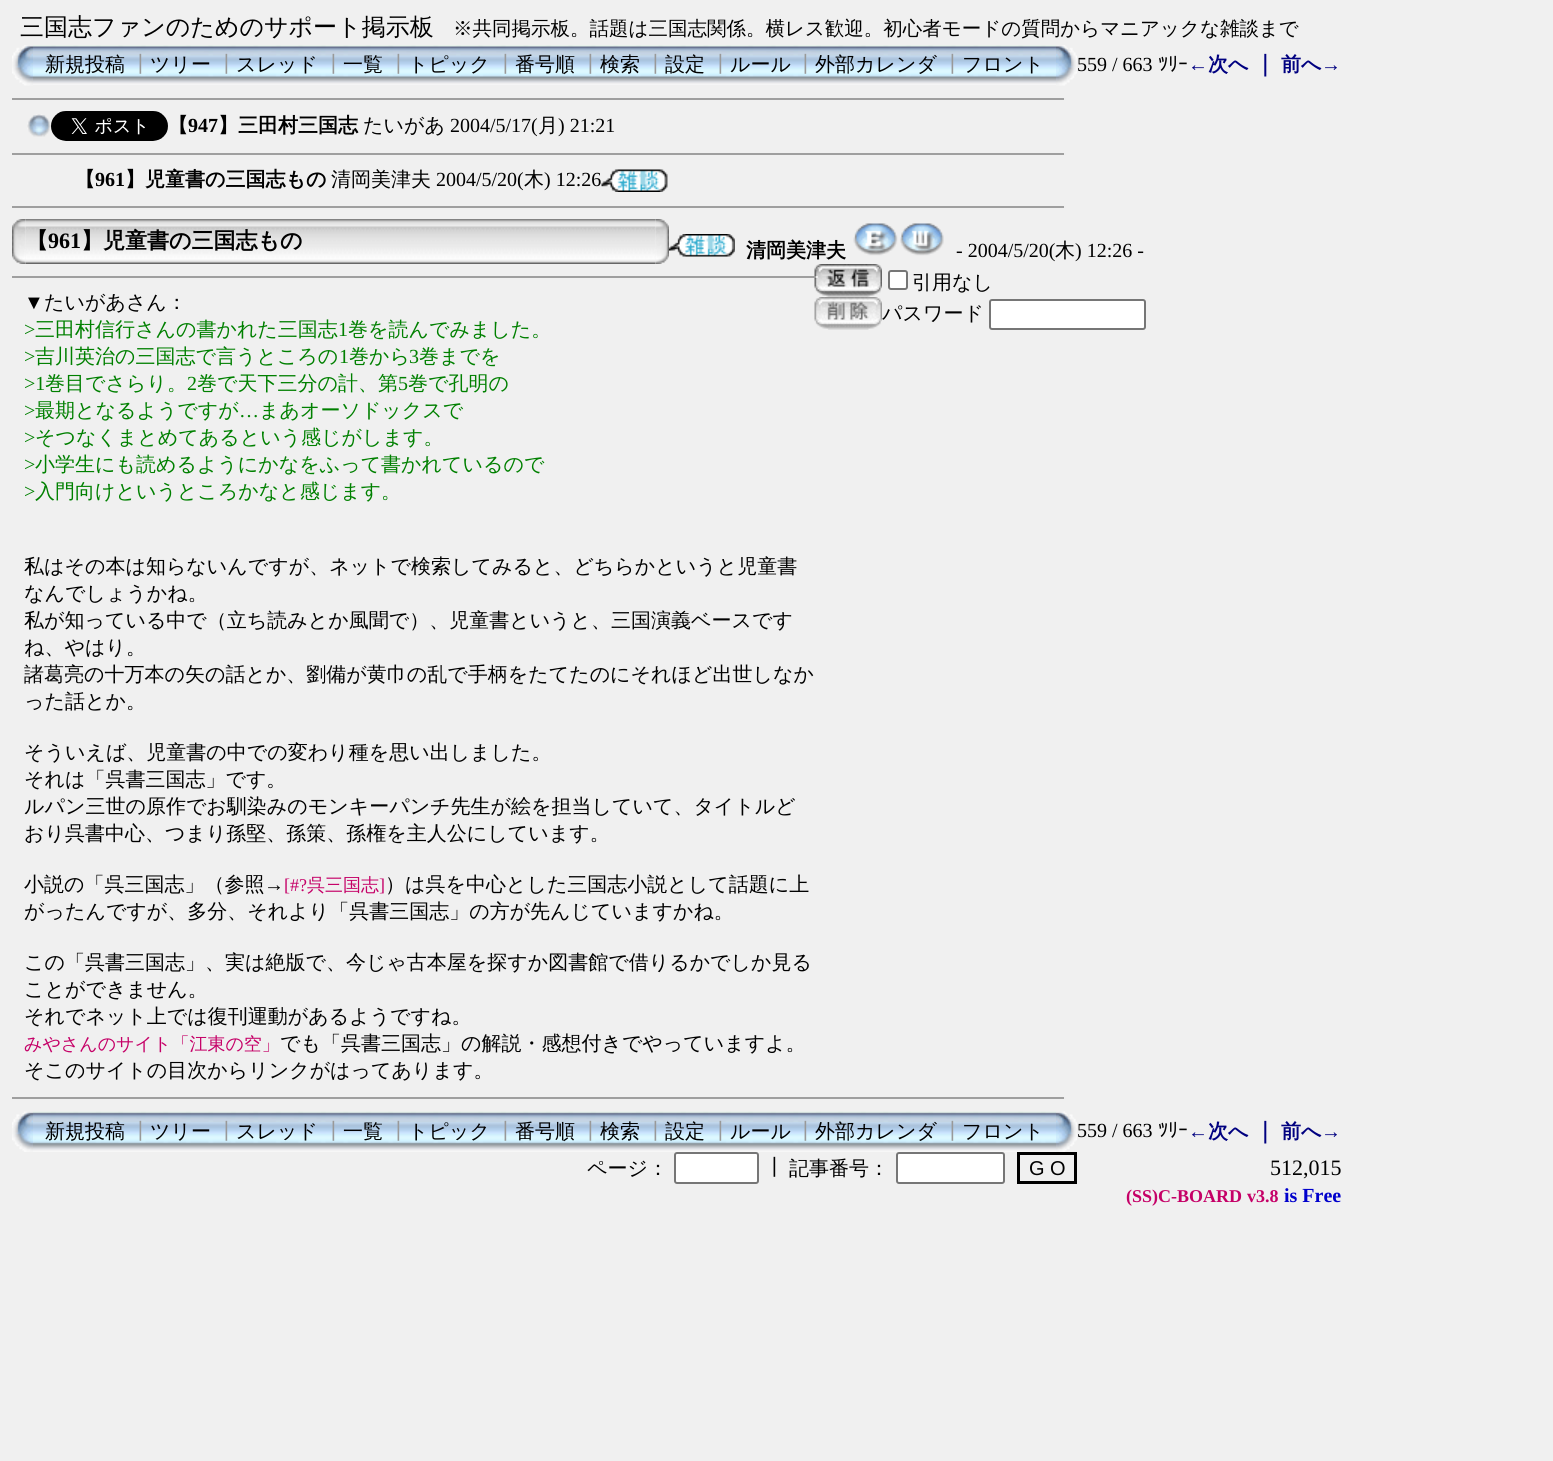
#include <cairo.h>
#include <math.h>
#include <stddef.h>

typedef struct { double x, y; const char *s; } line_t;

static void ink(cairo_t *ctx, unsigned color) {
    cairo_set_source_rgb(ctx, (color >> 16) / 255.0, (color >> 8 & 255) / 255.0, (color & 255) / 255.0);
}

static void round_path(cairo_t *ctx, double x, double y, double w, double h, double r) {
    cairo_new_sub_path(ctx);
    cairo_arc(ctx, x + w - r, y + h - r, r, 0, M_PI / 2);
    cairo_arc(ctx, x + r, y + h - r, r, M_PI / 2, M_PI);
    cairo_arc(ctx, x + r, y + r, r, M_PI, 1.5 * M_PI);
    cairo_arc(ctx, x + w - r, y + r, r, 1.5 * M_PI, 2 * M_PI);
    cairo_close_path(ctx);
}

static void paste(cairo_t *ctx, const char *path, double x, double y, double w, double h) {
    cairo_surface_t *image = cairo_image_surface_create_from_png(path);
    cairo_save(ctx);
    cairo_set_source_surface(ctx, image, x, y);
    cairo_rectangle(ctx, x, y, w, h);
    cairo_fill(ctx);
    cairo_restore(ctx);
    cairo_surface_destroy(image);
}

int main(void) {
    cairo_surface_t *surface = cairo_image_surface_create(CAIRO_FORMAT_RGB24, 1553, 1461);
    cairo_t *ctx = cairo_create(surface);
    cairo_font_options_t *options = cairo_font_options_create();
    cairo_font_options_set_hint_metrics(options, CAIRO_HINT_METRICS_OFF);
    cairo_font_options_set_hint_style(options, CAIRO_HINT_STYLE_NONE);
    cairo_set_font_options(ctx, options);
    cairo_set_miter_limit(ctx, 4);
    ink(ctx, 0xF0F0F0);
    cairo_paint(ctx);
    cairo_select_font_face(ctx, "WenQuanYi Zen Hei Medium", CAIRO_FONT_SLANT_NORMAL, CAIRO_FONT_WEIGHT_NORMAL);
    cairo_set_font_size(ctx, 24);
    ink(ctx, 0x000000);
    cairo_move_to(ctx, 20, 35);
    cairo_show_text(ctx, "三国志ファンのためのサポート掲示板");
    cairo_set_font_size(ctx, 19.5);
    cairo_move_to(ctx, 453, 35);
    cairo_show_text(ctx, "※共同掲示板。話題は三国志関係。横レス歓迎。初心者モードの質問からマニアックな雑談まで");
    paste(ctx, "media/1.png", 12, 45, 21, 41);
    paste(ctx, "media/2.png", 33, 45, 1023, 40);
    cairo_set_font_size(ctx, 20);
    cairo_move_to(ctx, 45, 71);
    cairo_show_text(ctx, "新規投稿");
    ink(ctx, 0x999999);
    cairo_move_to(ctx, 130, 71);
    cairo_show_text(ctx, "┃");
    ink(ctx, 0x000000);
    cairo_move_to(ctx, 150, 71);
    cairo_show_text(ctx, "ツリー");
    ink(ctx, 0x999999);
    cairo_move_to(ctx, 216, 71);
    cairo_show_text(ctx, "┃");
    ink(ctx, 0x000000);
    cairo_move_to(ctx, 236, 71);
    cairo_show_text(ctx, "スレッド");
    ink(ctx, 0x999999);
    cairo_move_to(ctx, 323, 71);
    cairo_show_text(ctx, "┃");
    ink(ctx, 0x000000);
    cairo_move_to(ctx, 343, 71);
    cairo_show_text(ctx, "一覧");
    ink(ctx, 0x999999);
    cairo_move_to(ctx, 388, 71);
    cairo_show_text(ctx, "┃");
    ink(ctx, 0x000000);
    cairo_move_to(ctx, 408, 71);
    cairo_show_text(ctx, "トピック");
    ink(ctx, 0x999999);
    cairo_move_to(ctx, 495, 71);
    cairo_show_text(ctx, "┃");
    ink(ctx, 0x000000);
    cairo_move_to(ctx, 515, 71);
    cairo_show_text(ctx, "番号順");
    ink(ctx, 0x999999);
    cairo_move_to(ctx, 580, 71);
    cairo_show_text(ctx, "┃");
    ink(ctx, 0x000000);
    cairo_move_to(ctx, 600, 71);
    cairo_show_text(ctx, "検索");
    ink(ctx, 0x999999);
    cairo_move_to(ctx, 645, 71);
    cairo_show_text(ctx, "┃");
    ink(ctx, 0x000000);
    cairo_move_to(ctx, 665, 71);
    cairo_show_text(ctx, "設定");
    ink(ctx, 0x999999);
    cairo_move_to(ctx, 710, 71);
    cairo_show_text(ctx, "┃");
    ink(ctx, 0x000000);
    cairo_move_to(ctx, 730, 71);
    cairo_show_text(ctx, "ルール");
    ink(ctx, 0x999999);
    cairo_move_to(ctx, 795, 71);
    cairo_show_text(ctx, "┃");
    ink(ctx, 0x000000);
    cairo_move_to(ctx, 815, 71);
    cairo_show_text(ctx, "外部カレンダ");
    ink(ctx, 0x999999);
    cairo_move_to(ctx, 942, 71);
    cairo_show_text(ctx, "┃");
    ink(ctx, 0x000000);
    cairo_move_to(ctx, 962, 71);
    cairo_show_text(ctx, "フロント");
    paste(ctx, "media/3.png", 1056, 45, 21, 41);
    cairo_select_font_face(ctx, "Liberation Serif", CAIRO_FONT_SLANT_NORMAL, CAIRO_FONT_WEIGHT_NORMAL);
    cairo_move_to(ctx, 1077, 71);
    cairo_show_text(ctx, "559 / 663");
    cairo_select_font_face(ctx, "IPAPGothic", CAIRO_FONT_SLANT_NORMAL, CAIRO_FONT_WEIGHT_NORMAL);
    cairo_move_to(ctx, 1158, 71);
    cairo_show_text(ctx, "ﾂﾘｰ");
    cairo_select_font_face(ctx, "Liberation Serif", CAIRO_FONT_SLANT_NORMAL, CAIRO_FONT_WEIGHT_BOLD);
    ink(ctx, 0x000080);
    cairo_move_to(ctx, 1188, 71);
    cairo_show_text(ctx, "←");
    cairo_select_font_face(ctx, "WenQuanYi Zen Hei", CAIRO_FONT_SLANT_NORMAL, CAIRO_FONT_WEIGHT_BOLD);
    cairo_move_to(ctx, 1208, 71);
    cairo_show_text(ctx, "次へ");
    cairo_set_font_size(ctx, 22);
    cairo_move_to(ctx, 1254, 71);
    cairo_show_text(ctx, "｜");
    cairo_set_font_size(ctx, 20);
    cairo_move_to(ctx, 1281, 71);
    cairo_show_text(ctx, "前へ");
    cairo_select_font_face(ctx, "Liberation Serif", CAIRO_FONT_SLANT_NORMAL, CAIRO_FONT_WEIGHT_BOLD);
    cairo_move_to(ctx, 1321, 71);
    cairo_show_text(ctx, "→");
    ink(ctx, 0x9F9F9F);
    cairo_rectangle(ctx, 12, 98, 1053, 2);
    cairo_fill(ctx);
    ink(ctx, 0xEEEEEE);
    cairo_rectangle(ctx, 1064, 98, 2, 2);
    cairo_fill(ctx);
    paste(ctx, "media/4.png", 27, 114, 24, 23);
    paste(ctx, "media/5.png", 51, 111, 117, 30);
    cairo_select_font_face(ctx, "WenQuanYi Zen Hei", CAIRO_FONT_SLANT_NORMAL, CAIRO_FONT_WEIGHT_BOLD);
    ink(ctx, 0x000000);
    cairo_move_to(ctx, 168, 132);
    cairo_show_text(ctx, "【");
    cairo_select_font_face(ctx, "Liberation Serif", CAIRO_FONT_SLANT_NORMAL, CAIRO_FONT_WEIGHT_BOLD);
    cairo_move_to(ctx, 188, 132);
    cairo_show_text(ctx, "947");
    cairo_select_font_face(ctx, "WenQuanYi Zen Hei", CAIRO_FONT_SLANT_NORMAL, CAIRO_FONT_WEIGHT_BOLD);
    cairo_move_to(ctx, 218, 132);
    cairo_show_text(ctx, "】三田村三国志");
    cairo_select_font_face(ctx, "WenQuanYi Zen Hei Medium", CAIRO_FONT_SLANT_NORMAL, CAIRO_FONT_WEIGHT_NORMAL);
    cairo_move_to(ctx, 363, 132);
    cairo_show_text(ctx, "たいがあ");
    cairo_select_font_face(ctx, "Liberation Serif", CAIRO_FONT_SLANT_NORMAL, CAIRO_FONT_WEIGHT_NORMAL);
    cairo_move_to(ctx, 450, 132);
    cairo_show_text(ctx, "2004/5/17(");
    cairo_select_font_face(ctx, "WenQuanYi Zen Hei Medium", CAIRO_FONT_SLANT_NORMAL, CAIRO_FONT_WEIGHT_NORMAL);
    cairo_move_to(ctx, 538, 132);
    cairo_show_text(ctx, "月");
    cairo_select_font_face(ctx, "Liberation Serif", CAIRO_FONT_SLANT_NORMAL, CAIRO_FONT_WEIGHT_NORMAL);
    cairo_move_to(ctx, 558, 132);
    cairo_show_text(ctx, ") 21:21");
    ink(ctx, 0x9F9F9F);
    cairo_rectangle(ctx, 12, 153, 1053, 2);
    cairo_fill(ctx);
    ink(ctx, 0xEEEEEE);
    cairo_rectangle(ctx, 1064, 153, 2, 2);
    cairo_fill(ctx);
    cairo_select_font_face(ctx, "WenQuanYi Zen Hei", CAIRO_FONT_SLANT_NORMAL, CAIRO_FONT_WEIGHT_BOLD);
    ink(ctx, 0x000000);
    cairo_move_to(ctx, 75, 186);
    cairo_show_text(ctx, "【");
    cairo_select_font_face(ctx, "Liberation Serif", CAIRO_FONT_SLANT_NORMAL, CAIRO_FONT_WEIGHT_BOLD);
    cairo_move_to(ctx, 95, 186);
    cairo_show_text(ctx, "961");
    cairo_select_font_face(ctx, "WenQuanYi Zen Hei", CAIRO_FONT_SLANT_NORMAL, CAIRO_FONT_WEIGHT_BOLD);
    cairo_move_to(ctx, 125, 186);
    cairo_show_text(ctx, "】児童書の三国志もの");
    cairo_select_font_face(ctx, "WenQuanYi Zen Hei Medium", CAIRO_FONT_SLANT_NORMAL, CAIRO_FONT_WEIGHT_NORMAL);
    cairo_move_to(ctx, 331, 186);
    cairo_show_text(ctx, "清岡美津夫");
    cairo_select_font_face(ctx, "Liberation Serif", CAIRO_FONT_SLANT_NORMAL, CAIRO_FONT_WEIGHT_NORMAL);
    cairo_move_to(ctx, 436, 186);
    cairo_show_text(ctx, "2004/5/20(");
    cairo_select_font_face(ctx, "WenQuanYi Zen Hei Medium", CAIRO_FONT_SLANT_NORMAL, CAIRO_FONT_WEIGHT_NORMAL);
    cairo_move_to(ctx, 524, 186);
    cairo_show_text(ctx, "木");
    cairo_select_font_face(ctx, "Liberation Serif", CAIRO_FONT_SLANT_NORMAL, CAIRO_FONT_WEIGHT_NORMAL);
    cairo_move_to(ctx, 544, 186);
    cairo_show_text(ctx, ") 12:26");
    paste(ctx, "media/6.png", 601, 169, 67, 23);
    ink(ctx, 0x9F9F9F);
    cairo_rectangle(ctx, 12, 206, 1053, 2);
    cairo_fill(ctx);
    ink(ctx, 0xEEEEEE);
    cairo_rectangle(ctx, 1064, 206, 2, 2);
    cairo_fill(ctx);
    paste(ctx, "media/8.png", 25, 219, 631, 45);
    paste(ctx, "media/7.png", 12, 219, 14, 45);
    cairo_select_font_face(ctx, "WenQuanYi Zen Hei", CAIRO_FONT_SLANT_NORMAL, CAIRO_FONT_WEIGHT_BOLD);
    cairo_set_font_size(ctx, 22);
    ink(ctx, 0x000000);
    cairo_move_to(ctx, 26, 248);
    cairo_show_text(ctx, "【");
    cairo_select_font_face(ctx, "Liberation Serif", CAIRO_FONT_SLANT_NORMAL, CAIRO_FONT_WEIGHT_BOLD);
    cairo_move_to(ctx, 48, 248);
    cairo_show_text(ctx, "961");
    cairo_select_font_face(ctx, "WenQuanYi Zen Hei", CAIRO_FONT_SLANT_NORMAL, CAIRO_FONT_WEIGHT_BOLD);
    cairo_move_to(ctx, 81, 248);
    cairo_show_text(ctx, "】児童書の三国志もの");
    paste(ctx, "media/9.png", 655, 219, 14, 45);
    paste(ctx, "media/10.png", 669, 234, 66, 23);
    cairo_set_font_size(ctx, 20);
    cairo_move_to(ctx, 746, 257);
    cairo_show_text(ctx, "清岡美津夫");
    paste(ctx, "media/11.png", 853, 223, 45, 33);
    paste(ctx, "media/12.png", 900, 223, 44, 33);
    cairo_select_font_face(ctx, "Liberation Serif", CAIRO_FONT_SLANT_NORMAL, CAIRO_FONT_WEIGHT_NORMAL);
    cairo_move_to(ctx, 956, 257);
    cairo_show_text(ctx, "- 2004/5/20(");
    cairo_select_font_face(ctx, "WenQuanYi Zen Hei Medium", CAIRO_FONT_SLANT_NORMAL, CAIRO_FONT_WEIGHT_NORMAL);
    cairo_move_to(ctx, 1055, 257);
    cairo_show_text(ctx, "木");
    cairo_select_font_face(ctx, "Liberation Serif", CAIRO_FONT_SLANT_NORMAL, CAIRO_FONT_WEIGHT_NORMAL);
    cairo_move_to(ctx, 1075, 257);
    cairo_show_text(ctx, ") 12:26 -");
    cairo_move_to(ctx, 24, 309);
    cairo_show_text(ctx, "▼");
    cairo_select_font_face(ctx, "WenQuanYi Zen Hei Medium", CAIRO_FONT_SLANT_NORMAL, CAIRO_FONT_WEIGHT_NORMAL);
    cairo_move_to(ctx, 44, 309);
    cairo_show_text(ctx, "たいがあさん：");
    cairo_select_font_face(ctx, "Liberation Serif", CAIRO_FONT_SLANT_NORMAL, CAIRO_FONT_WEIGHT_NORMAL);
    ink(ctx, 0x008000);
    cairo_move_to(ctx, 24, 336);
    cairo_show_text(ctx, ">");
    cairo_select_font_face(ctx, "WenQuanYi Zen Hei Medium", CAIRO_FONT_SLANT_NORMAL, CAIRO_FONT_WEIGHT_NORMAL);
    cairo_move_to(ctx, 35, 336);
    cairo_show_text(ctx, "三田村信行さんの書かれた三国志");
    cairo_select_font_face(ctx, "Liberation Serif", CAIRO_FONT_SLANT_NORMAL, CAIRO_FONT_WEIGHT_NORMAL);
    cairo_move_to(ctx, 338, 336);
    cairo_show_text(ctx, "1");
    cairo_select_font_face(ctx, "WenQuanYi Zen Hei Medium", CAIRO_FONT_SLANT_NORMAL, CAIRO_FONT_WEIGHT_NORMAL);
    cairo_move_to(ctx, 348, 336);
    cairo_show_text(ctx, "巻を読んでみました。");
    cairo_select_font_face(ctx, "Liberation Serif", CAIRO_FONT_SLANT_NORMAL, CAIRO_FONT_WEIGHT_NORMAL);
    cairo_move_to(ctx, 24, 363);
    cairo_show_text(ctx, ">");
    cairo_select_font_face(ctx, "WenQuanYi Zen Hei Medium", CAIRO_FONT_SLANT_NORMAL, CAIRO_FONT_WEIGHT_NORMAL);
    cairo_move_to(ctx, 35, 363);
    cairo_show_text(ctx, "吉川英治の三国志で言うところの");
    cairo_select_font_face(ctx, "Liberation Serif", CAIRO_FONT_SLANT_NORMAL, CAIRO_FONT_WEIGHT_NORMAL);
    cairo_move_to(ctx, 339, 363);
    cairo_show_text(ctx, "1");
    cairo_select_font_face(ctx, "WenQuanYi Zen Hei Medium", CAIRO_FONT_SLANT_NORMAL, CAIRO_FONT_WEIGHT_NORMAL);
    cairo_move_to(ctx, 349, 363);
    cairo_show_text(ctx, "巻から");
    cairo_select_font_face(ctx, "Liberation Serif", CAIRO_FONT_SLANT_NORMAL, CAIRO_FONT_WEIGHT_NORMAL);
    cairo_move_to(ctx, 409, 363);
    cairo_show_text(ctx, "3");
    cairo_select_font_face(ctx, "WenQuanYi Zen Hei Medium", CAIRO_FONT_SLANT_NORMAL, CAIRO_FONT_WEIGHT_NORMAL);
    cairo_move_to(ctx, 419, 363);
    cairo_show_text(ctx, "巻までを");
    cairo_select_font_face(ctx, "Liberation Serif", CAIRO_FONT_SLANT_NORMAL, CAIRO_FONT_WEIGHT_NORMAL);
    cairo_move_to(ctx, 24, 390);
    cairo_show_text(ctx, ">1");
    cairo_select_font_face(ctx, "WenQuanYi Zen Hei Medium", CAIRO_FONT_SLANT_NORMAL, CAIRO_FONT_WEIGHT_NORMAL);
    cairo_move_to(ctx, 45, 390);
    cairo_show_text(ctx, "巻目でさらり。");
    cairo_select_font_face(ctx, "Liberation Serif", CAIRO_FONT_SLANT_NORMAL, CAIRO_FONT_WEIGHT_NORMAL);
    cairo_move_to(ctx, 187, 390);
    cairo_show_text(ctx, "2");
    cairo_select_font_face(ctx, "WenQuanYi Zen Hei Medium", CAIRO_FONT_SLANT_NORMAL, CAIRO_FONT_WEIGHT_NORMAL);
    cairo_move_to(ctx, 197, 390);
    cairo_show_text(ctx, "巻で天下三分の計、第");
    cairo_select_font_face(ctx, "Liberation Serif", CAIRO_FONT_SLANT_NORMAL, CAIRO_FONT_WEIGHT_NORMAL);
    cairo_move_to(ctx, 398, 390);
    cairo_show_text(ctx, "5");
    cairo_select_font_face(ctx, "WenQuanYi Zen Hei Medium", CAIRO_FONT_SLANT_NORMAL, CAIRO_FONT_WEIGHT_NORMAL);
    cairo_move_to(ctx, 408, 390);
    cairo_show_text(ctx, "巻で孔明の");
    cairo_select_font_face(ctx, "Liberation Serif", CAIRO_FONT_SLANT_NORMAL, CAIRO_FONT_WEIGHT_NORMAL);
    cairo_move_to(ctx, 24, 417);
    cairo_show_text(ctx, ">");
    cairo_select_font_face(ctx, "WenQuanYi Zen Hei Medium", CAIRO_FONT_SLANT_NORMAL, CAIRO_FONT_WEIGHT_NORMAL);
    cairo_move_to(ctx, 35, 417);
    cairo_show_text(ctx, "最期となるようですが");
    cairo_select_font_face(ctx, "Liberation Serif", CAIRO_FONT_SLANT_NORMAL, CAIRO_FONT_WEIGHT_NORMAL);
    cairo_move_to(ctx, 239, 417);
    cairo_show_text(ctx, "…");
    cairo_select_font_face(ctx, "WenQuanYi Zen Hei Medium", CAIRO_FONT_SLANT_NORMAL, CAIRO_FONT_WEIGHT_NORMAL);
    cairo_move_to(ctx, 259, 417);
    cairo_show_text(ctx, "まあオーソドックスで");
    cairo_select_font_face(ctx, "Liberation Serif", CAIRO_FONT_SLANT_NORMAL, CAIRO_FONT_WEIGHT_NORMAL);
    cairo_move_to(ctx, 24, 444);
    cairo_show_text(ctx, ">");
    cairo_select_font_face(ctx, "WenQuanYi Zen Hei Medium", CAIRO_FONT_SLANT_NORMAL, CAIRO_FONT_WEIGHT_NORMAL);
    cairo_move_to(ctx, 35, 444);
    cairo_show_text(ctx, "そつなくまとめてあるという感じがします。");
    cairo_select_font_face(ctx, "Liberation Serif", CAIRO_FONT_SLANT_NORMAL, CAIRO_FONT_WEIGHT_NORMAL);
    cairo_move_to(ctx, 24, 471);
    cairo_show_text(ctx, ">");
    cairo_select_font_face(ctx, "WenQuanYi Zen Hei Medium", CAIRO_FONT_SLANT_NORMAL, CAIRO_FONT_WEIGHT_NORMAL);
    cairo_move_to(ctx, 35, 471);
    cairo_show_text(ctx, "小学生にも読めるようにかなをふって書かれているので");
    cairo_select_font_face(ctx, "Liberation Serif", CAIRO_FONT_SLANT_NORMAL, CAIRO_FONT_WEIGHT_NORMAL);
    cairo_move_to(ctx, 24, 498);
    cairo_show_text(ctx, ">");
    cairo_select_font_face(ctx, "WenQuanYi Zen Hei Medium", CAIRO_FONT_SLANT_NORMAL, CAIRO_FONT_WEIGHT_NORMAL);
    cairo_move_to(ctx, 35, 498);
    cairo_show_text(ctx, "入門向けというところかなと感じます。");
    ink(ctx, 0x000000);
    {
        static const line_t items[] = {
            {24, 573, "私はその本は知らないんですが、ネットで検索してみると、どちらかというと児童書"},
            {24, 600, "なんでしょうかね。"},
            {24, 627, "私が知っている中で（立ち読みとか風聞で）、児童書というと、三国演義ベースです"},
            {24, 654, "ね、やはり。"},
            {24, 681, "諸葛亮の十万本の矢の話とか、劉備が黄巾の乱で手柄をたてたのにそれほど出世しなか"},
            {24, 708, "った話とか。"},
            {24, 759, "そういえば、児童書の中での変わり種を思い出しました。"},
            {24, 786, "それは「呉書三国志」です。"},
            {24, 813, "ルパン三世の原作でお馴染みのモンキーパンチ先生が絵を担当していて、タイトルど"},
            {24, 840, "おり呉書中心、つまり孫堅、孫策、孫権を主人公にしています。"},
            {24, 891, "小説の「呉三国志」（参照"},
        };
        for (size_t i = 0; i < sizeof items / sizeof *items; i++) {
            cairo_move_to(ctx, items[i].x, items[i].y);
            cairo_show_text(ctx, items[i].s);
        }
    }
    cairo_select_font_face(ctx, "Liberation Serif", CAIRO_FONT_SLANT_NORMAL, CAIRO_FONT_WEIGHT_NORMAL);
    cairo_move_to(ctx, 264, 891);
    cairo_show_text(ctx, "→");
    cairo_set_font_size(ctx, 18);
    ink(ctx, 0xC50067);
    cairo_move_to(ctx, 284, 891);
    cairo_show_text(ctx, "[#?");
    cairo_select_font_face(ctx, "WenQuanYi Zen Hei Medium", CAIRO_FONT_SLANT_NORMAL, CAIRO_FONT_WEIGHT_NORMAL);
    cairo_move_to(ctx, 307, 891);
    cairo_show_text(ctx, "呉三国志");
    cairo_select_font_face(ctx, "Liberation Serif", CAIRO_FONT_SLANT_NORMAL, CAIRO_FONT_WEIGHT_NORMAL);
    cairo_move_to(ctx, 379, 891);
    cairo_show_text(ctx, "]");
    cairo_select_font_face(ctx, "WenQuanYi Zen Hei Medium", CAIRO_FONT_SLANT_NORMAL, CAIRO_FONT_WEIGHT_NORMAL);
    cairo_set_font_size(ctx, 20);
    ink(ctx, 0x000000);
    {
        static const line_t items[] = {
            {385, 891, "）は呉を中心とした三国志小説として話題に上"},
            {24, 918, "がったんですが、多分、それより「呉書三国志」の方が先んじていますかね。"},
            {24, 969, "この「呉書三国志」、実は絶版で、今じゃ古本屋を探すか図書館で借りるかでしか見る"},
            {24, 996, "ことができません。"},
            {24, 1023, "それでネット上では復刊運動があるようですね。"},
        };
        for (size_t i = 0; i < sizeof items / sizeof *items; i++) {
            cairo_move_to(ctx, items[i].x, items[i].y);
            cairo_show_text(ctx, items[i].s);
        }
    }
    cairo_set_font_size(ctx, 18);
    ink(ctx, 0xC50067);
    cairo_move_to(ctx, 24, 1050);
    cairo_show_text(ctx, "みやさんのサイト「江東の空」");
    cairo_set_font_size(ctx, 20);
    ink(ctx, 0x000000);
    cairo_move_to(ctx, 280, 1050);
    cairo_show_text(ctx, "でも「呉書三国志」の解説・感想付きでやっていますよ。");
    cairo_move_to(ctx, 24, 1077);
    cairo_show_text(ctx, "そこのサイトの目次からリンクがはってあります。");
    paste(ctx, "media/13.png", 814, 264, 68, 33);
    ink(ctx, 0x9F9F9F);
    cairo_rectangle(ctx, 12, 276, 806, 2);
    cairo_fill(ctx);
    ink(ctx, 0xEEEEEE);
    cairo_rectangle(ctx, 816, 276, 2, 2);
    cairo_fill(ctx);
    ink(ctx, 0xFFFFFF);
    round_path(ctx, 889, 271, 18, 18, 2);
    cairo_fill_preserve(ctx);
    ink(ctx, 0x767676);
    cairo_stroke(ctx);
    ink(ctx, 0x000000);
    cairo_move_to(ctx, 912, 289);
    cairo_show_text(ctx, "引用なし");
    paste(ctx, "media/14.png", 814, 297, 68, 33);
    cairo_move_to(ctx, 882, 320);
    cairo_show_text(ctx, "パスワード");
    ink(ctx, 0xFFFFFF);
    round_path(ctx, 990, 300, 155, 29, 2);
    cairo_fill_preserve(ctx);
    ink(ctx, 0x767676);
    cairo_stroke(ctx);
    ink(ctx, 0x9F9F9F);
    cairo_rectangle(ctx, 12, 1097, 1053, 2);
    cairo_fill(ctx);
    ink(ctx, 0xEEEEEE);
    cairo_rectangle(ctx, 1064, 1097, 2, 2);
    cairo_fill(ctx);
    paste(ctx, "media/15.png", 12, 1111, 21, 41);
    paste(ctx, "media/16.png", 33, 1111, 1023, 41);
    ink(ctx, 0x000000);
    cairo_move_to(ctx, 45, 1138);
    cairo_show_text(ctx, "新規投稿");
    ink(ctx, 0x999999);
    cairo_move_to(ctx, 130, 1138);
    cairo_show_text(ctx, "┃");
    ink(ctx, 0x000000);
    cairo_move_to(ctx, 150, 1138);
    cairo_show_text(ctx, "ツリー");
    ink(ctx, 0x999999);
    cairo_move_to(ctx, 216, 1138);
    cairo_show_text(ctx, "┃");
    ink(ctx, 0x000000);
    cairo_move_to(ctx, 236, 1138);
    cairo_show_text(ctx, "スレッド");
    ink(ctx, 0x999999);
    cairo_move_to(ctx, 323, 1138);
    cairo_show_text(ctx, "┃");
    ink(ctx, 0x000000);
    cairo_move_to(ctx, 343, 1138);
    cairo_show_text(ctx, "一覧");
    ink(ctx, 0x999999);
    cairo_move_to(ctx, 388, 1138);
    cairo_show_text(ctx, "┃");
    ink(ctx, 0x000000);
    cairo_move_to(ctx, 408, 1138);
    cairo_show_text(ctx, "トピック");
    ink(ctx, 0x999999);
    cairo_move_to(ctx, 495, 1138);
    cairo_show_text(ctx, "┃");
    ink(ctx, 0x000000);
    cairo_move_to(ctx, 515, 1138);
    cairo_show_text(ctx, "番号順");
    ink(ctx, 0x999999);
    cairo_move_to(ctx, 580, 1138);
    cairo_show_text(ctx, "┃");
    ink(ctx, 0x000000);
    cairo_move_to(ctx, 600, 1138);
    cairo_show_text(ctx, "検索");
    ink(ctx, 0x999999);
    cairo_move_to(ctx, 645, 1138);
    cairo_show_text(ctx, "┃");
    ink(ctx, 0x000000);
    cairo_move_to(ctx, 665, 1138);
    cairo_show_text(ctx, "設定");
    ink(ctx, 0x999999);
    cairo_move_to(ctx, 710, 1138);
    cairo_show_text(ctx, "┃");
    ink(ctx, 0x000000);
    cairo_move_to(ctx, 730, 1138);
    cairo_show_text(ctx, "ルール");
    ink(ctx, 0x999999);
    cairo_move_to(ctx, 795, 1138);
    cairo_show_text(ctx, "┃");
    ink(ctx, 0x000000);
    cairo_move_to(ctx, 815, 1138);
    cairo_show_text(ctx, "外部カレンダ");
    ink(ctx, 0x999999);
    cairo_move_to(ctx, 942, 1138);
    cairo_show_text(ctx, "┃");
    ink(ctx, 0x000000);
    cairo_move_to(ctx, 962, 1138);
    cairo_show_text(ctx, "フロント");
    paste(ctx, "media/17.png", 1056, 1111, 21, 41);
    cairo_select_font_face(ctx, "Liberation Serif", CAIRO_FONT_SLANT_NORMAL, CAIRO_FONT_WEIGHT_NORMAL);
    cairo_move_to(ctx, 1077, 1137);
    cairo_show_text(ctx, "559 / 663");
    cairo_select_font_face(ctx, "IPAPGothic", CAIRO_FONT_SLANT_NORMAL, CAIRO_FONT_WEIGHT_NORMAL);
    cairo_move_to(ctx, 1158, 1137);
    cairo_show_text(ctx, "ﾂﾘｰ");
    cairo_select_font_face(ctx, "Liberation Serif", CAIRO_FONT_SLANT_NORMAL, CAIRO_FONT_WEIGHT_BOLD);
    ink(ctx, 0x000080);
    cairo_move_to(ctx, 1188, 1138);
    cairo_show_text(ctx, "←");
    cairo_select_font_face(ctx, "WenQuanYi Zen Hei", CAIRO_FONT_SLANT_NORMAL, CAIRO_FONT_WEIGHT_BOLD);
    cairo_move_to(ctx, 1208, 1138);
    cairo_show_text(ctx, "次へ");
    cairo_set_font_size(ctx, 22);
    cairo_move_to(ctx, 1254, 1138);
    cairo_show_text(ctx, "｜");
    cairo_set_font_size(ctx, 20);
    cairo_move_to(ctx, 1281, 1138);
    cairo_show_text(ctx, "前へ");
    cairo_select_font_face(ctx, "Liberation Serif", CAIRO_FONT_SLANT_NORMAL, CAIRO_FONT_WEIGHT_BOLD);
    cairo_move_to(ctx, 1321, 1138);
    cairo_show_text(ctx, "→");
    cairo_select_font_face(ctx, "WenQuanYi Zen Hei Medium", CAIRO_FONT_SLANT_NORMAL, CAIRO_FONT_WEIGHT_NORMAL);
    ink(ctx, 0x000000);
    cairo_move_to(ctx, 587, 1175);
    cairo_show_text(ctx, "ページ：");
    ink(ctx, 0xFFFFFF);
    round_path(ctx, 675, 1153, 83, 30, 2);
    cairo_fill_preserve(ctx);
    ink(ctx, 0x767676);
    cairo_stroke(ctx);
    ink(ctx, 0x000000);
    cairo_move_to(ctx, 764, 1174);
    cairo_show_text(ctx, "┃");
    cairo_move_to(ctx, 789, 1175);
    cairo_show_text(ctx, "記事番号：");
    ink(ctx, 0xFFFFFF);
    round_path(ctx, 897, 1153, 107, 30, 2);
    cairo_fill_preserve(ctx);
    ink(ctx, 0x767676);
    cairo_stroke(ctx);
    cairo_rectangle(ctx, 1018.5, 1153.5, 57, 29);
    ink(ctx, 0x000000);
    cairo_set_line_width(ctx, 3);
    cairo_stroke(ctx);
    cairo_select_font_face(ctx, "Liberation Sans", CAIRO_FONT_SLANT_NORMAL, CAIRO_FONT_WEIGHT_NORMAL);
    cairo_move_to(ctx, 1029, 1175);
    cairo_show_text(ctx, "G O");
    cairo_select_font_face(ctx, "Liberation Serif", CAIRO_FONT_SLANT_NORMAL, CAIRO_FONT_WEIGHT_NORMAL);
    cairo_set_font_size(ctx, 22);
    cairo_move_to(ctx, 1270, 1175);
    cairo_show_text(ctx, "512,015");
    cairo_select_font_face(ctx, "Liberation Serif", CAIRO_FONT_SLANT_NORMAL, CAIRO_FONT_WEIGHT_BOLD);
    cairo_set_font_size(ctx, 18);
    ink(ctx, 0xC50067);
    cairo_move_to(ctx, 1126, 1202);
    cairo_show_text(ctx, "(SS)C-BOARD");
    cairo_move_to(ctx, 1247, 1202);
    cairo_show_text(ctx, "v3.8");
    cairo_set_font_size(ctx, 20);
    ink(ctx, 0x0000CC);
    cairo_move_to(ctx, 1284, 1202);
    cairo_show_text(ctx, "is Free");
    cairo_surface_write_to_png(surface, "image.png");
    cairo_font_options_destroy(options);
    cairo_destroy(ctx);
    cairo_surface_destroy(surface);
    return 0;
}
